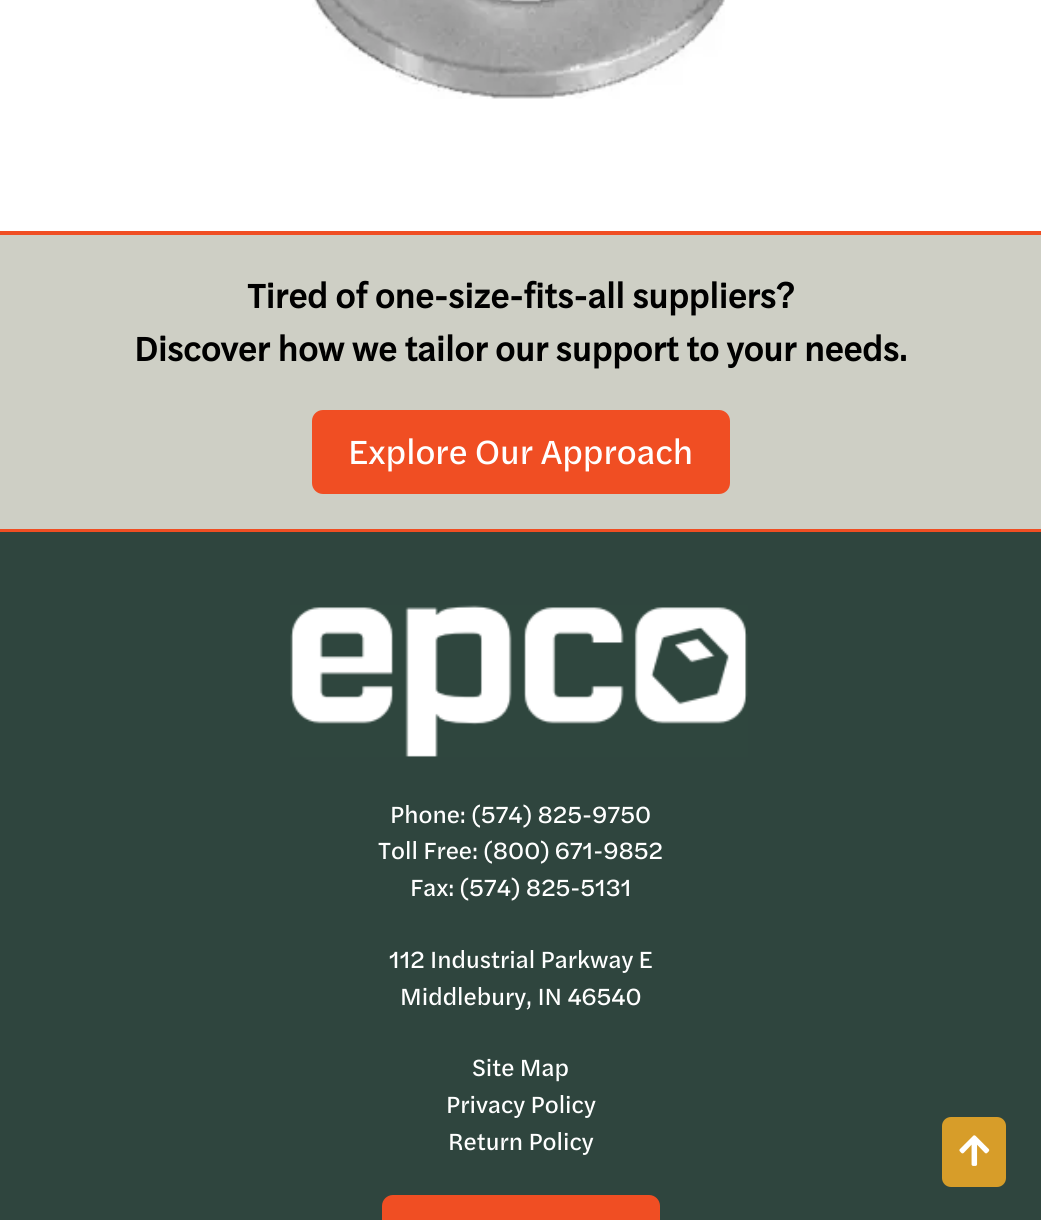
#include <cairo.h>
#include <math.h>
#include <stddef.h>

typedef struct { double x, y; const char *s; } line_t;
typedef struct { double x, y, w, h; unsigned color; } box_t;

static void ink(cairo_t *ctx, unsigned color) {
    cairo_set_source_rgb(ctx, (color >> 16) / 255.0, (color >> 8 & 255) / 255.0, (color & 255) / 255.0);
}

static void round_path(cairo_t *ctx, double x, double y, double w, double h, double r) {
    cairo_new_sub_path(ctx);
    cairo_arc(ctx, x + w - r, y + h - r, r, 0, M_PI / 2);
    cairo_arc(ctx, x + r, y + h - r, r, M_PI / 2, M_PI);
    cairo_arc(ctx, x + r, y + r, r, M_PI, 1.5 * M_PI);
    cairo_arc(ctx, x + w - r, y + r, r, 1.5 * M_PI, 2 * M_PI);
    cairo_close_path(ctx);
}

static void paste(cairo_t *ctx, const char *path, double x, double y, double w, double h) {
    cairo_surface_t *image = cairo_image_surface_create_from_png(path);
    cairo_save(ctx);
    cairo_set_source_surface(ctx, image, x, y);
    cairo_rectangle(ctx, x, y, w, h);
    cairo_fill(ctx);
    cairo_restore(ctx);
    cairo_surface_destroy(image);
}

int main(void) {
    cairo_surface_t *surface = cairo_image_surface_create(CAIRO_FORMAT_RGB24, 1041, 1220);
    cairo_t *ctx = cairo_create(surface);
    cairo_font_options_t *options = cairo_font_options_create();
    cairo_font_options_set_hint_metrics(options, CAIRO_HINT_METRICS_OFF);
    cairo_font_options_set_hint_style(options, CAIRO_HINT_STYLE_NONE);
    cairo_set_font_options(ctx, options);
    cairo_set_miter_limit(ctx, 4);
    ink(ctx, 0xFFFFFF);
    cairo_paint(ctx);
    paste(ctx, "media/1.png", 312, 0, 413, 99);
    {
        static const box_t items[] = {
            {0, 235, 1041, 294, 0xCECFC5},
            {0, 231, 1041, 4, 0xF04E23},
            {0, 529, 1041, 3, 0xF04E23},
        };
        for (size_t i = 0; i < sizeof items / sizeof *items; i++) {
            ink(ctx, items[i].color);
            cairo_rectangle(ctx, items[i].x, items[i].y, items[i].w, items[i].h);
            cairo_fill(ctx);
        }
    }
    cairo_select_font_face(ctx, "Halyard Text", CAIRO_FONT_SLANT_NORMAL, CAIRO_FONT_WEIGHT_BOLD);
    cairo_set_font_size(ctx, 35);
    ink(ctx, 0x000000);
    cairo_move_to(ctx, 247, 308);
    cairo_show_text(ctx, "Tired of one-size-fits-all suppliers?");
    cairo_move_to(ctx, 134, 361);
    cairo_show_text(ctx, "Discover how we tailor our support to your needs.");
    ink(ctx, 0xF04E23);
    round_path(ctx, 313, 411, 416, 82, 10);
    cairo_fill_preserve(ctx);
    cairo_stroke(ctx);
    cairo_select_font_face(ctx, "Halyard Text", CAIRO_FONT_SLANT_NORMAL, CAIRO_FONT_WEIGHT_NORMAL);
    ink(ctx, 0xFFFFFF);
    cairo_move_to(ctx, 348, 464);
    cairo_show_text(ctx, "Explore Our Approach");
    ink(ctx, 0x2F453E);
    cairo_rectangle(ctx, 0, 532, 1041, 688);
    cairo_fill(ctx);
    paste(ctx, "media/2.png", 290, 605, 458, 152);
    cairo_set_font_size(ctx, 24.5);
    ink(ctx, 0xFFFFFF);
    {
        static const line_t items[] = {
            {390, 823, "Phone: (574) 825-9750"},
            {378, 859, "Toll Free: (800) 671-9852"},
            {410, 896, "Fax: (574) 825-5131"},
            {389, 968, "112 Industrial Parkway E"},
            {400, 1005, "Middlebury, IN 46540"},
            {472, 1076, "Site Map"},
            {446, 1113, "Privacy Policy"},
            {448, 1150, "Return Policy"},
        };
        for (size_t i = 0; i < sizeof items / sizeof *items; i++) {
            cairo_move_to(ctx, items[i].x, items[i].y);
            cairo_show_text(ctx, items[i].s);
        }
    }
    ink(ctx, 0xF04E23);
    round_path(ctx, 383, 1196, 276, 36, 10);
    cairo_fill_preserve(ctx);
    cairo_stroke(ctx);
    ink(ctx, 0xD79D29);
    round_path(ctx, 942, 1117, 64, 70, 9);
    cairo_fill(ctx);
    paste(ctx, "media/3.png", 959, 1135, 31, 31);
    cairo_surface_write_to_png(surface, "image.png");
    cairo_font_options_destroy(options);
    cairo_destroy(ctx);
    cairo_surface_destroy(surface);
    return 0;
}
